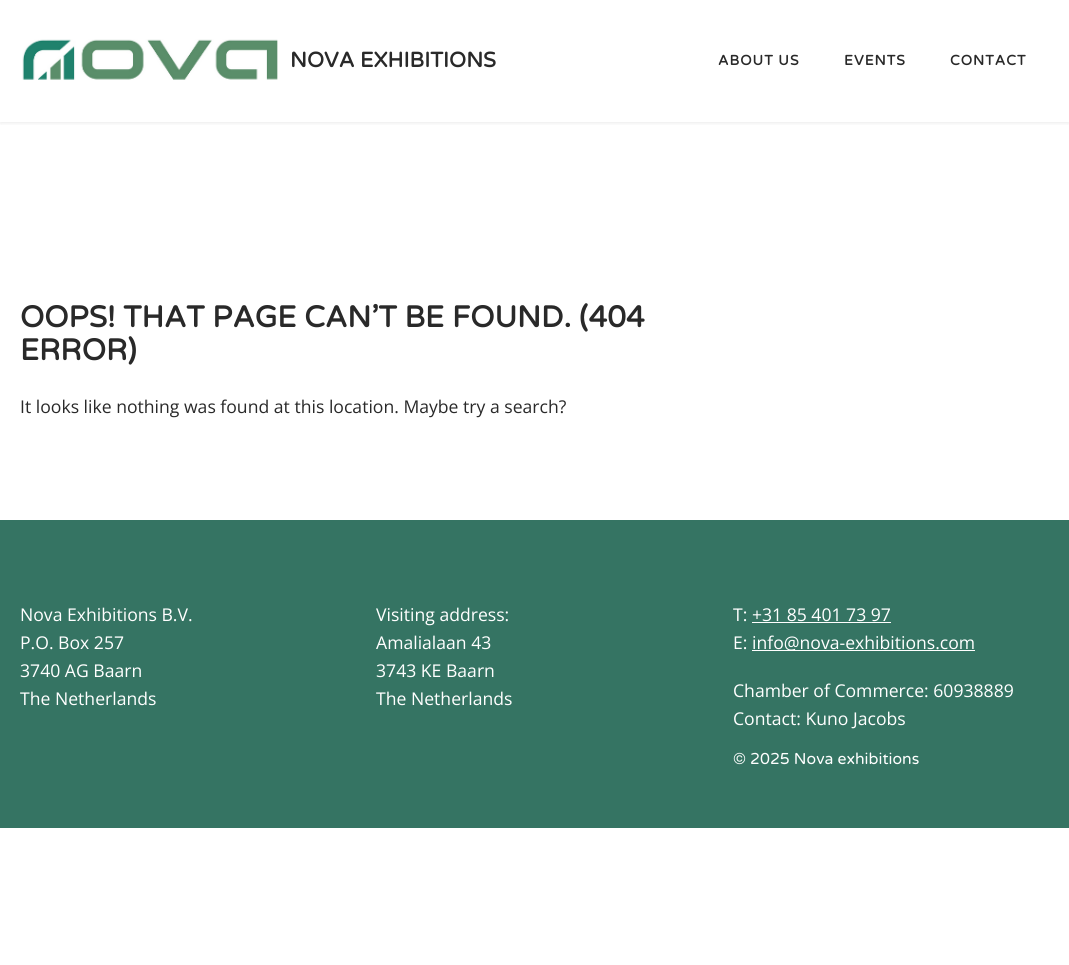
#include <cairo.h>
#include <math.h>
#include <stddef.h>

typedef struct { double x, y; const char *s; } line_t;

static void ink(cairo_t *ctx, unsigned color) {
    cairo_set_source_rgb(ctx, (color >> 16) / 255.0, (color >> 8 & 255) / 255.0, (color & 255) / 255.0);
}

static void write_spaced(cairo_t *ctx, double x, double y, const char *s, double letter, double word) {
    cairo_move_to(ctx, x, y);
    while (*s) {
        char ch[5] = {0};
        int n = 0;
        do ch[n++] = *s++; while ((*s & 0xC0) == 0x80);
        cairo_show_text(ctx, ch);
        cairo_rel_move_to(ctx, letter + word * (*ch == ' '), 0);
    }
}

static void round_path(cairo_t *ctx, double x, double y, double w, double h, double r) {
    cairo_new_sub_path(ctx);
    cairo_arc(ctx, x + w - r, y + h - r, r, 0, M_PI / 2);
    cairo_arc(ctx, x + r, y + h - r, r, M_PI / 2, M_PI);
    cairo_arc(ctx, x + r, y + r, r, M_PI, 1.5 * M_PI);
    cairo_arc(ctx, x + w - r, y + r, r, 1.5 * M_PI, 2 * M_PI);
    cairo_close_path(ctx);
}

static void blur_box(cairo_t *ctx, double x, double y, double w, double h, double r, double blur, double alpha) {
    cairo_push_group_with_content(ctx, CAIRO_CONTENT_ALPHA);
    cairo_set_operator(ctx, CAIRO_OPERATOR_SOURCE);
    for (int i = 15; i >= -15 && fmin(w, h) + blur * i / 3 > 0; i -= 2) {
        double e = blur * i / 6;
        cairo_set_source_rgba(ctx, 0, 0, 0, alpha * erfc((i - 1) / 8.5) / 2);
        round_path(ctx, x - e, y - e, w + 2 * e, h + 2 * e, fmax(0, fmin(r + e + blur * .6, fmin(w, h) / 2 + e)));
        cairo_fill(ctx);
    }
    cairo_pattern_t *soft = cairo_pop_group(ctx);
    cairo_mask(ctx, soft);
    cairo_pattern_destroy(soft);
}

static void paste(cairo_t *ctx, const char *path, double x, double y, double w, double h) {
    cairo_surface_t *image = cairo_image_surface_create_from_png(path);
    cairo_save(ctx);
    cairo_set_source_surface(ctx, image, x, y);
    cairo_rectangle(ctx, x, y, w, h);
    cairo_fill(ctx);
    cairo_restore(ctx);
    cairo_surface_destroy(image);
}

int main(void) {
    cairo_surface_t *surface = cairo_image_surface_create(CAIRO_FORMAT_RGB24, 1069, 965);
    cairo_t *ctx = cairo_create(surface);
    cairo_font_options_t *options = cairo_font_options_create();
    cairo_font_options_set_hint_metrics(options, CAIRO_HINT_METRICS_OFF);
    cairo_font_options_set_hint_style(options, CAIRO_HINT_STYLE_NONE);
    cairo_set_font_options(ctx, options);
    cairo_set_miter_limit(ctx, 4);
    ink(ctx, 0xFFFFFF);
    cairo_paint(ctx);
    cairo_save(ctx);
    cairo_rectangle(ctx, 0, 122, 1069, 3);
    cairo_clip(ctx);
    ink(ctx, 0x292929);
    blur_box(ctx, 0, 1, 1069, 122, 0, 2.5, 0.1);
    cairo_restore(ctx);
    paste(ctx, "media/1.png", 22, 39, 256, 41);
    cairo_select_font_face(ctx, "Varela Round", CAIRO_FONT_SLANT_NORMAL, CAIRO_FONT_WEIGHT_BOLD);
    cairo_set_font_size(ctx, 21.1);
    ink(ctx, 0x292929);
    cairo_move_to(ctx, 290, 67);
    cairo_show_text(ctx, "NOVA EXHIBITIONS");
    cairo_set_font_size(ctx, 14);
    {
        static const line_t items[] = {
            {718, 65, "ABOUT US"},
            {844, 65, "EVENTS"},
            {950, 65, "CONTACT"},
        };
        for (size_t i = 0; i < sizeof items / sizeof *items; i++) {
            write_spaced(ctx, items[i].x, items[i].y, items[i].s, 1, 0);
        }
    }
    cairo_set_font_size(ctx, 29.9);
    cairo_move_to(ctx, 20, 327);
    cairo_show_text(ctx, "OOPS! THAT PAGE CAN’T BE FOUND. (404");
    cairo_move_to(ctx, 20, 360);
    cairo_show_text(ctx, "ERROR)");
    cairo_select_font_face(ctx, "Open Sans", CAIRO_FONT_SLANT_NORMAL, CAIRO_FONT_WEIGHT_NORMAL);
    cairo_set_font_size(ctx, 17.6);
    cairo_move_to(ctx, 20, 413);
    cairo_show_text(ctx, "It looks like nothing was found at this location. Maybe try a search?");
    ink(ctx, 0x357463);
    cairo_rectangle(ctx, 0, 520, 1069, 308);
    cairo_fill(ctx);
    ink(ctx, 0xFFFFFF);
    {
        static const line_t items[] = {
            {20, 621, "Nova Exhibitions B.V."},
            {20, 649, "P.O. Box 257"},
            {20, 677, "3740 AG Baarn"},
            {20, 705, "The Netherlands"},
            {376, 621, "Visiting address:"},
            {376, 649, "Amalialaan 43"},
            {376, 677, "3743 KE Baarn"},
            {376, 705, "The Netherlands"},
            {733, 621, "T: +31 85 401 73 97"},
        };
        for (size_t i = 0; i < sizeof items / sizeof *items; i++) {
            cairo_move_to(ctx, items[i].x, items[i].y);
            cairo_show_text(ctx, items[i].s);
        }
    }
    cairo_rectangle(ctx, 752, 622, 139, 1);
    cairo_fill(ctx);
    cairo_move_to(ctx, 733, 649);
    cairo_show_text(ctx, "E:");
    cairo_rectangle(ctx, 752, 650, 223, 1);
    cairo_fill(ctx);
    {
        static const line_t items[] = {
            {752, 649, "info@nova-exhibitions.com"},
            {733, 697, "Chamber of Commerce: 60938889"},
            {733, 725, "Contact: Kuno Jacobs"},
        };
        for (size_t i = 0; i < sizeof items / sizeof *items; i++) {
            cairo_move_to(ctx, items[i].x, items[i].y);
            cairo_show_text(ctx, items[i].s);
        }
    }
    cairo_select_font_face(ctx, "Varela Round", CAIRO_FONT_SLANT_NORMAL, CAIRO_FONT_WEIGHT_NORMAL);
    cairo_set_font_size(ctx, 15.8);
    cairo_move_to(ctx, 733, 764);
    cairo_show_text(ctx, "© 2025 Nova exhibitions");
    cairo_surface_write_to_png(surface, "image.png");
    cairo_font_options_destroy(options);
    cairo_destroy(ctx);
    cairo_surface_destroy(surface);
    return 0;
}
